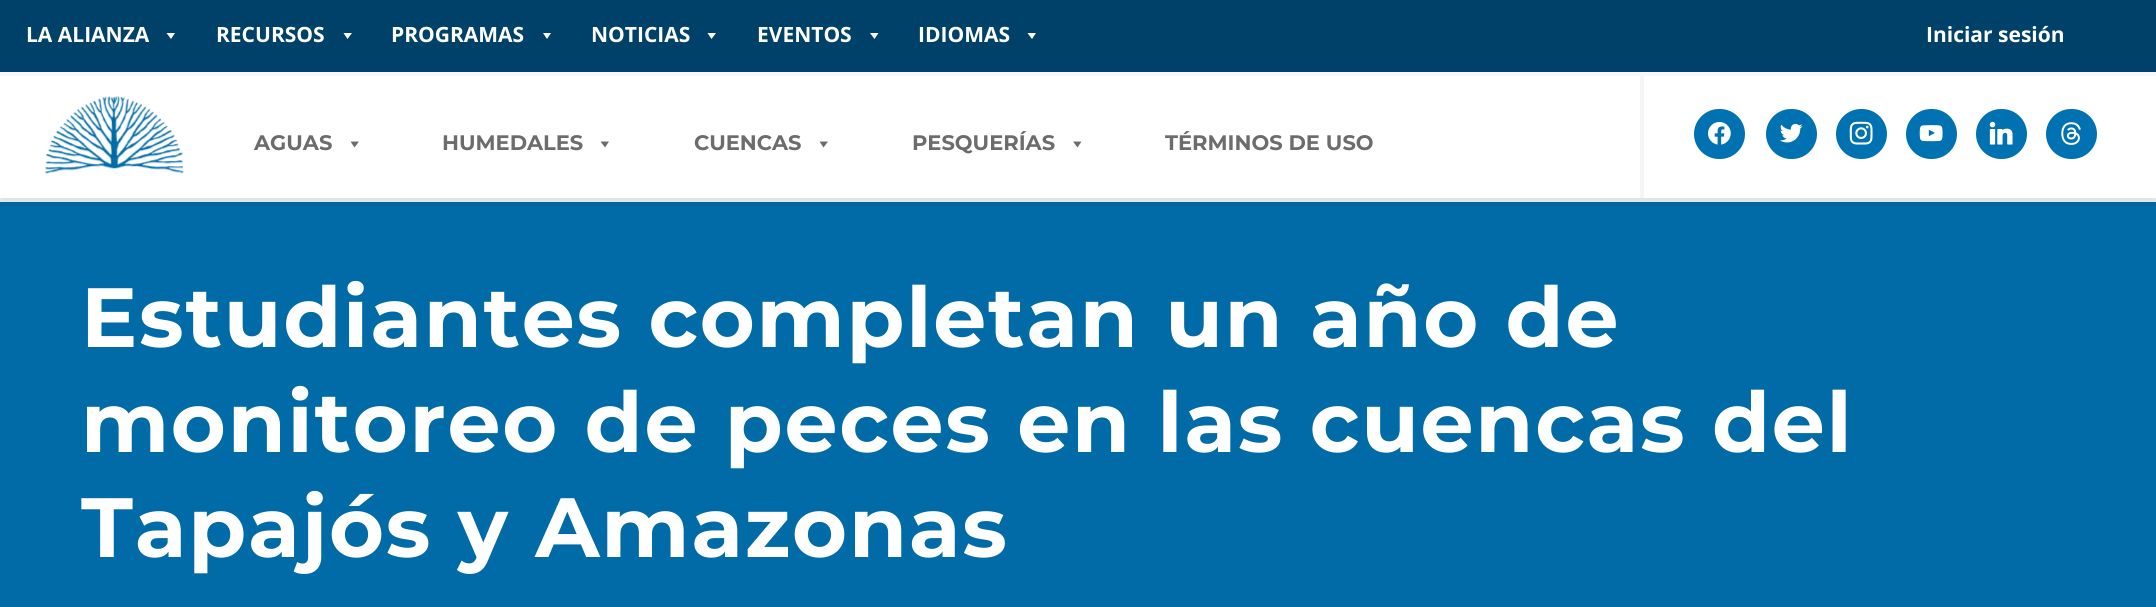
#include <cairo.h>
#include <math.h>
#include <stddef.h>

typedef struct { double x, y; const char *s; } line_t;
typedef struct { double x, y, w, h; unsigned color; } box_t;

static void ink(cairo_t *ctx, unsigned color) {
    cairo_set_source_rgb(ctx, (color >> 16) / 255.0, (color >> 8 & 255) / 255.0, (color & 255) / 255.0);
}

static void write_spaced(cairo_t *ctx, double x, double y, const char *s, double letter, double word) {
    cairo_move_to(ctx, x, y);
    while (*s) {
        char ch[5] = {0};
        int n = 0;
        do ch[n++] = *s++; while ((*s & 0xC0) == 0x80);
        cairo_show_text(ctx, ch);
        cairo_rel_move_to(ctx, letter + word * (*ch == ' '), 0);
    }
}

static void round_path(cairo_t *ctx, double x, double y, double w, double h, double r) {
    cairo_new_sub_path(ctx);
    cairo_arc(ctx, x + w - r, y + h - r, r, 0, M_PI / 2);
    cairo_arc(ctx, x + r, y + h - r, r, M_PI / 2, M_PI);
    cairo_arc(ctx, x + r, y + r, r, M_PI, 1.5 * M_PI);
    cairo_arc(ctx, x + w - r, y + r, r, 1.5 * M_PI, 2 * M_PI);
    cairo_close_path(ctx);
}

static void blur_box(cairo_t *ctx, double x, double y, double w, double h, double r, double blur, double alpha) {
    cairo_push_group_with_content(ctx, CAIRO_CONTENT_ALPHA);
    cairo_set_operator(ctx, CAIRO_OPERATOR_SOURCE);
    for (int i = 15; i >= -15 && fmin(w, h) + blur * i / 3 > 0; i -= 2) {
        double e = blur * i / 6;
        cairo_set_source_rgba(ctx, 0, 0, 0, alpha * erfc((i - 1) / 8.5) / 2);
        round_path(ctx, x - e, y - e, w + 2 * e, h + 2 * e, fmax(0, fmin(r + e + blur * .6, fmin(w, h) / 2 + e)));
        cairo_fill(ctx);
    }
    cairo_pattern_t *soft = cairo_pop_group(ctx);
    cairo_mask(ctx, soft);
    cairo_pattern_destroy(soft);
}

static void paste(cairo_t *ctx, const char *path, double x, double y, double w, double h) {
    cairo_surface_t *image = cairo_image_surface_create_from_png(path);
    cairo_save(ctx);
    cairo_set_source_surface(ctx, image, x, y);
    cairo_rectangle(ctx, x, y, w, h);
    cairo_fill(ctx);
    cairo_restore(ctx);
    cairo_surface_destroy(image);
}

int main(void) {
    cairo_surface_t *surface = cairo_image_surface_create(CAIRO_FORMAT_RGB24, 2156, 607);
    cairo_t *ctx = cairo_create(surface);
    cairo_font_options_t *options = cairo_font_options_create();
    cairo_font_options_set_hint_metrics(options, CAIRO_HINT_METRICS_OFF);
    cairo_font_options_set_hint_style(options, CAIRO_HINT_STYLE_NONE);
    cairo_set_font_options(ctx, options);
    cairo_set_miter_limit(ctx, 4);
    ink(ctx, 0x006BA6);
    cairo_paint(ctx);
    ink(ctx, 0xF5F5F5);
    cairo_rectangle(ctx, 0, 198, 2156, 4);
    cairo_fill(ctx);
    ink(ctx, 0x000000);
    blur_box(ctx, 0, 81, 2156, 122, 0, 4.5, 0.1);
    {
        static const box_t items[] = {
            {0, 0, 2156, 72, 0x00416A},
            {0, 76, 2156, 122, 0xFFFFFF},
            {1640, 75, 4, 123, 0xF5F5F5},
            {0, 72, 2156, 4, 0xF7F7F7},
        };
        for (size_t i = 0; i < sizeof items / sizeof *items; i++) {
            ink(ctx, items[i].color);
            cairo_rectangle(ctx, items[i].x, items[i].y, items[i].w, items[i].h);
            cairo_fill(ctx);
        }
    }
    cairo_select_font_face(ctx, "Open Sans", CAIRO_FONT_SLANT_NORMAL, CAIRO_FONT_WEIGHT_BOLD);
    cairo_set_font_size(ctx, 21);
    ink(ctx, 0xFFFFFF);
    cairo_move_to(ctx, 26, 42);
    cairo_show_text(ctx, "LA ALIANZA");
    cairo_new_path(ctx);
    cairo_move_to(ctx, 175, 33);
    cairo_line_to(ctx, 171, 39);
    cairo_line_to(ctx, 166.5, 33);
    cairo_close_path(ctx);
    cairo_fill(ctx);
    cairo_move_to(ctx, 216, 42);
    cairo_show_text(ctx, "RECURSOS");
    cairo_new_path(ctx);
    cairo_move_to(ctx, 352, 33);
    cairo_line_to(ctx, 347.5, 39);
    cairo_line_to(ctx, 343.5, 33);
    cairo_close_path(ctx);
    cairo_fill(ctx);
    cairo_move_to(ctx, 391, 42);
    cairo_show_text(ctx, "PROGRAMAS");
    cairo_new_path(ctx);
    cairo_move_to(ctx, 551, 33);
    cairo_line_to(ctx, 547, 39);
    cairo_line_to(ctx, 543, 33);
    cairo_close_path(ctx);
    cairo_fill(ctx);
    cairo_move_to(ctx, 591, 42);
    cairo_show_text(ctx, "NOTICIAS");
    cairo_new_path(ctx);
    cairo_move_to(ctx, 716, 33);
    cairo_line_to(ctx, 711.5, 39);
    cairo_line_to(ctx, 707.5, 33);
    cairo_close_path(ctx);
    cairo_fill(ctx);
    cairo_move_to(ctx, 757, 42);
    cairo_show_text(ctx, "EVENTOS");
    cairo_new_path(ctx);
    cairo_move_to(ctx, 878.5, 33);
    cairo_line_to(ctx, 874.5, 39);
    cairo_line_to(ctx, 870, 33);
    cairo_close_path(ctx);
    cairo_fill(ctx);
    cairo_move_to(ctx, 918, 42);
    cairo_show_text(ctx, "IDIOMAS");
    cairo_new_path(ctx);
    cairo_move_to(ctx, 1036, 33);
    cairo_line_to(ctx, 1032, 39);
    cairo_line_to(ctx, 1027.5, 33);
    cairo_close_path(ctx);
    cairo_fill(ctx);
    cairo_move_to(ctx, 1926, 42);
    cairo_show_text(ctx, "Iniciar sesión");
    paste(ctx, "media/1.png", 44, 96, 140, 78);
    cairo_select_font_face(ctx, "Montserrat", CAIRO_FONT_SLANT_NORMAL, CAIRO_FONT_WEIGHT_BOLD);
    ink(ctx, 0x6C6C6C);
    cairo_move_to(ctx, 254, 150);
    cairo_show_text(ctx, "AGUAS");
    cairo_new_path(ctx);
    cairo_move_to(ctx, 359, 141.5);
    cairo_line_to(ctx, 354.5, 147.5);
    cairo_line_to(ctx, 350.5, 141.5);
    cairo_close_path(ctx);
    cairo_fill(ctx);
    cairo_move_to(ctx, 442, 150);
    cairo_show_text(ctx, "HUMEDALES");
    cairo_new_path(ctx);
    cairo_move_to(ctx, 609, 141.5);
    cairo_line_to(ctx, 605, 147.5);
    cairo_line_to(ctx, 600.5, 141.5);
    cairo_close_path(ctx);
    cairo_fill(ctx);
    cairo_move_to(ctx, 694, 150);
    cairo_show_text(ctx, "CUENCAS");
    cairo_new_path(ctx);
    cairo_move_to(ctx, 828, 141.5);
    cairo_line_to(ctx, 823.5, 147.5);
    cairo_line_to(ctx, 819.5, 141.5);
    cairo_close_path(ctx);
    cairo_fill(ctx);
    cairo_move_to(ctx, 912, 150);
    cairo_show_text(ctx, "PESQUERÍAS");
    cairo_new_path(ctx);
    cairo_move_to(ctx, 1081.5, 141.5);
    cairo_line_to(ctx, 1077.5, 147.5);
    cairo_line_to(ctx, 1073, 141.5);
    cairo_close_path(ctx);
    cairo_fill(ctx);
    cairo_move_to(ctx, 1165, 150);
    cairo_show_text(ctx, "TÉRMINOS DE USO");
    ink(ctx, 0x0072B1);
    round_path(ctx, 1694, 109, 51, 50, 25);
    cairo_fill(ctx);
    paste(ctx, "media/2.png", 1708, 122, 23, 23);
    round_path(ctx, 1766, 109, 51, 50, 25);
    cairo_fill(ctx);
    paste(ctx, "media/3.png", 1780, 123, 23, 20);
    round_path(ctx, 1836, 109, 51, 50, 25);
    cairo_fill(ctx);
    paste(ctx, "media/4.png", 1849, 121, 24, 24);
    round_path(ctx, 1906, 109, 51, 50, 25);
    cairo_fill(ctx);
    paste(ctx, "media/5.png", 1919, 125, 24, 17);
    round_path(ctx, 1976, 109, 51, 50, 25);
    cairo_fill(ctx);
    paste(ctx, "media/6.png", 1989, 121, 24, 24);
    round_path(ctx, 2046, 109, 51, 50, 25);
    cairo_fill(ctx);
    paste(ctx, "media/7.png", 2061, 122, 20, 23);
    cairo_set_font_size(ctx, 84);
    ink(ctx, 0xFFFFFF);
    {
        static const line_t items[] = {
            {81, 347, "Estudiantes completan un año de"},
            {81, 452, "monitoreo de peces en las cuencas del"},
            {81, 557, "Tapajós y Amazonas"},
        };
        for (size_t i = 0; i < sizeof items / sizeof *items; i++) {
            write_spaced(ctx, items[i].x, items[i].y, items[i].s, 1.75, 0);
        }
    }
    cairo_surface_write_to_png(surface, "image.png");
    cairo_font_options_destroy(options);
    cairo_destroy(ctx);
    cairo_surface_destroy(surface);
    return 0;
}
